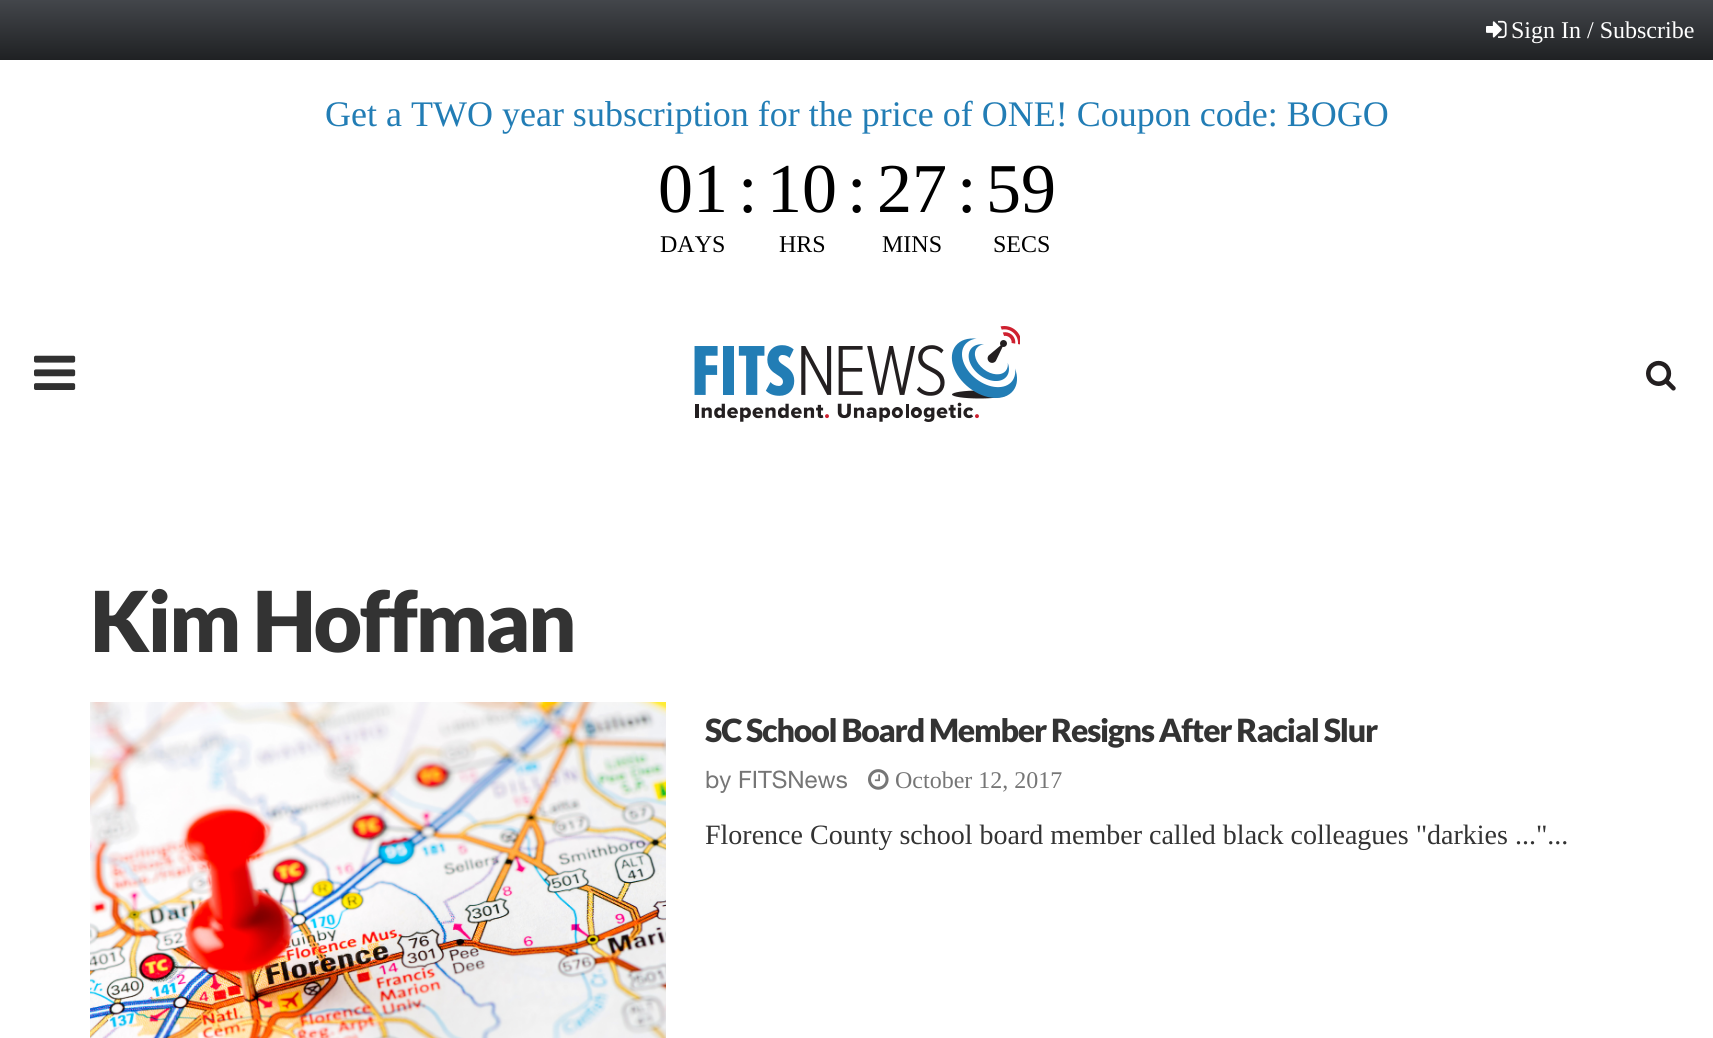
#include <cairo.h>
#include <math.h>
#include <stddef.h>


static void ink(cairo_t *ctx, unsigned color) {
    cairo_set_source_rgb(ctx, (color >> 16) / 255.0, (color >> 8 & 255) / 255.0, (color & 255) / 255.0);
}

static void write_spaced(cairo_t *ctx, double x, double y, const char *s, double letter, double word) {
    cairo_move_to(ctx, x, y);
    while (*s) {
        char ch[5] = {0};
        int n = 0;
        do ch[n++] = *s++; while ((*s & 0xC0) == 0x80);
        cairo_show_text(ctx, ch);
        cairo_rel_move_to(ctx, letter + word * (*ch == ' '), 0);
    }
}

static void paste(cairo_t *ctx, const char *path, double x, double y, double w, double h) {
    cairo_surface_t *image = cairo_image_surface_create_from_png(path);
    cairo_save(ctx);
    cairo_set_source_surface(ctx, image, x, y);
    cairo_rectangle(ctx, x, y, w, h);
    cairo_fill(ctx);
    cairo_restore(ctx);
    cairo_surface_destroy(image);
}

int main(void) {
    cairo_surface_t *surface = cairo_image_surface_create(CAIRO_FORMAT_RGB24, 1713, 1038);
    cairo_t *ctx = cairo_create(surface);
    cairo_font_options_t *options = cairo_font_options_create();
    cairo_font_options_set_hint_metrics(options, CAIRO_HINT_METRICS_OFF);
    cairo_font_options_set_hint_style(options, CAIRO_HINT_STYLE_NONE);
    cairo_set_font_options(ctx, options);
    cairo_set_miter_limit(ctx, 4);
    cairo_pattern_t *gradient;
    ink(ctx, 0xFFFFFF);
    cairo_paint(ctx);
    gradient = cairo_pattern_create_linear(857, 0, 857, 60);
    cairo_pattern_add_color_stop_rgba(gradient, 0, 0.263, 0.275, 0.294, 1);
    cairo_pattern_add_color_stop_rgba(gradient, 1, 0.122, 0.129, 0.137, 1);
    cairo_set_source(ctx, gradient);
    cairo_pattern_destroy(gradient);
    cairo_rectangle(ctx, 0, 0, 1713, 60);
    cairo_fill(ctx);
    paste(ctx, "media/1.png", 1486, 20, 21, 18);
    cairo_select_font_face(ctx, "Liberation Serif", CAIRO_FONT_SLANT_NORMAL, CAIRO_FONT_WEIGHT_NORMAL);
    cairo_set_font_size(ctx, 24);
    ink(ctx, 0xFFFFFF);
    cairo_move_to(ctx, 1511, 38);
    cairo_show_text(ctx, "Sign In / Subscribe");
    cairo_set_font_size(ctx, 36);
    ink(ctx, 0x227DB5);
    cairo_move_to(ctx, 325, 126);
    cairo_show_text(ctx, "Get a TWO year subscription for the price of ONE! Coupon code: BOGO");
    cairo_set_font_size(ctx, 70);
    ink(ctx, 0x000000);
    cairo_move_to(ctx, 658, 212);
    cairo_show_text(ctx, "01");
    cairo_set_font_size(ctx, 24);
    cairo_move_to(ctx, 660, 252);
    cairo_show_text(ctx, "DAYS");
    cairo_set_font_size(ctx, 70);
    cairo_move_to(ctx, 738, 212);
    cairo_show_text(ctx, ":");
    cairo_move_to(ctx, 767, 212);
    cairo_show_text(ctx, "10");
    cairo_set_font_size(ctx, 24);
    cairo_move_to(ctx, 779, 252);
    cairo_show_text(ctx, "HRS");
    cairo_set_font_size(ctx, 70);
    cairo_move_to(ctx, 847, 212);
    cairo_show_text(ctx, ":");
    cairo_move_to(ctx, 877, 212);
    cairo_show_text(ctx, "27");
    cairo_set_font_size(ctx, 24);
    cairo_move_to(ctx, 882, 252);
    cairo_show_text(ctx, "MINS");
    cairo_set_font_size(ctx, 70);
    cairo_move_to(ctx, 957, 212);
    cairo_show_text(ctx, ":");
    cairo_move_to(ctx, 986, 212);
    cairo_show_text(ctx, "59");
    cairo_set_font_size(ctx, 24);
    cairo_move_to(ctx, 993, 252);
    cairo_show_text(ctx, "SECS");
    paste(ctx, "media/2.png", 34, 355, 42, 35);
    paste(ctx, "media/3.png", 694, 326, 326, 96);
    paste(ctx, "media/4.png", 1646, 360, 30, 31);
    cairo_select_font_face(ctx, "Lato Black", CAIRO_FONT_SLANT_NORMAL, CAIRO_FONT_WEIGHT_NORMAL);
    cairo_set_font_size(ctx, 84);
    ink(ctx, 0x333333);
    write_spaced(ctx, 90, 652, "Kim Hoffman", -2.5, 0);
    paste(ctx, "media/5.png", 90, 702, 576, 336);
    cairo_set_font_size(ctx, 32);
    write_spaced(ctx, 705, 742, "SC School Board Member Resigns After Racial Slur", -1.2, 0);
    cairo_select_font_face(ctx, "Helvetica Neue", CAIRO_FONT_SLANT_NORMAL, CAIRO_FONT_WEIGHT_NORMAL);
    cairo_set_font_size(ctx, 24);
    ink(ctx, 0x767676);
    cairo_move_to(ctx, 705, 788);
    cairo_show_text(ctx, "by FITSNews");
    paste(ctx, "media/6.png", 868, 769, 21, 21);
    cairo_select_font_face(ctx, "Liberation Serif", CAIRO_FONT_SLANT_NORMAL, CAIRO_FONT_WEIGHT_NORMAL);
    cairo_move_to(ctx, 895, 788);
    cairo_show_text(ctx, "October 12, 2017");
    cairo_set_font_size(ctx, 28);
    ink(ctx, 0x333333);
    cairo_move_to(ctx, 705, 844);
    cairo_show_text(ctx, "Florence County school board member called black colleagues \"darkies ...\"...");
    cairo_surface_write_to_png(surface, "image.png");
    cairo_font_options_destroy(options);
    cairo_destroy(ctx);
    cairo_surface_destroy(surface);
    return 0;
}
